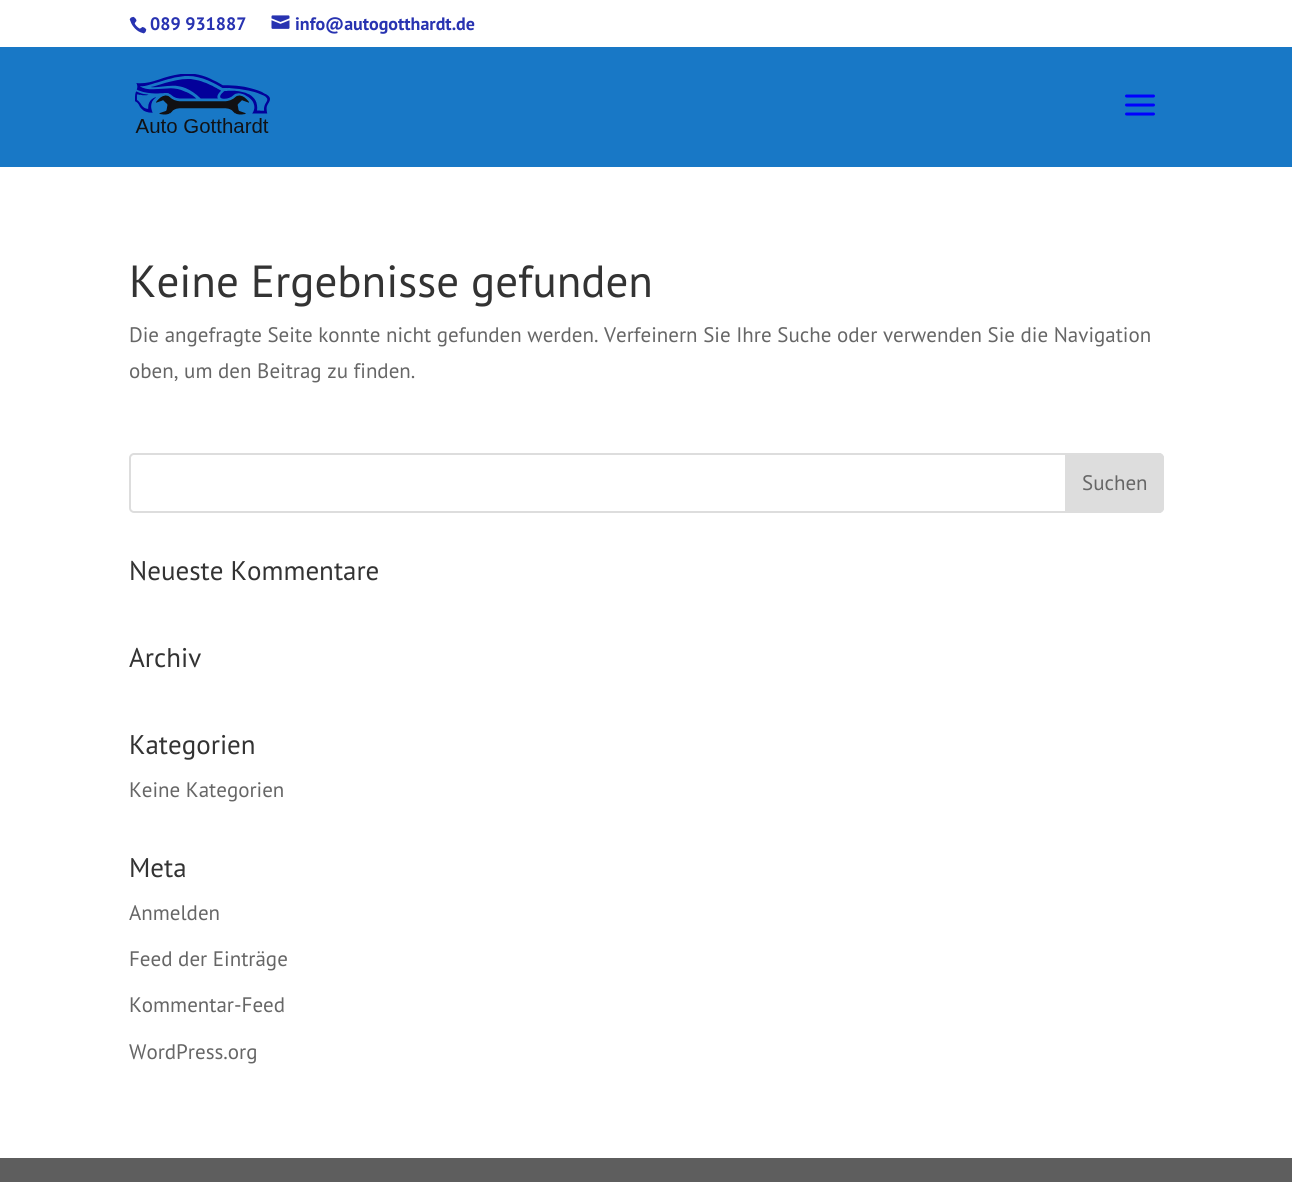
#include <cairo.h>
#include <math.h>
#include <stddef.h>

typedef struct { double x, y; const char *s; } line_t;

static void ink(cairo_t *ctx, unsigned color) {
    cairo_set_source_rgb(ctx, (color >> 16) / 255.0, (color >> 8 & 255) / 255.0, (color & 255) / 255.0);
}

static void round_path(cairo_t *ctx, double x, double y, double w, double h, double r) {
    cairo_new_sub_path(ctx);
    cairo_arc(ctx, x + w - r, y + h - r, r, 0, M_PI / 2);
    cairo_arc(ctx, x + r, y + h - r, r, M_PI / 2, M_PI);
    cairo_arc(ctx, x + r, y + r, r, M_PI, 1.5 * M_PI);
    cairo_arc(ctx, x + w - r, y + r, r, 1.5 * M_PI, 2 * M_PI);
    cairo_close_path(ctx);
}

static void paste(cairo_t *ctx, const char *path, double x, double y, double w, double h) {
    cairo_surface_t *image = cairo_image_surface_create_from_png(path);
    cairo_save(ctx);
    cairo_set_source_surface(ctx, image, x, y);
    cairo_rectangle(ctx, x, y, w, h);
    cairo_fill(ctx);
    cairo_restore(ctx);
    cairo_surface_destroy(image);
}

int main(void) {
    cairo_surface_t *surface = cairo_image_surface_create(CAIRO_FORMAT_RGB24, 1292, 1182);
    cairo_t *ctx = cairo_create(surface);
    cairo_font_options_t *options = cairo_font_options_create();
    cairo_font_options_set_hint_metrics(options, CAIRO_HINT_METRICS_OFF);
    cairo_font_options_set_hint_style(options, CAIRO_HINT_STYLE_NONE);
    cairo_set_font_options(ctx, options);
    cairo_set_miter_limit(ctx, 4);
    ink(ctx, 0xFFFFFF);
    cairo_paint(ctx);
    paste(ctx, "media/1.png", 129, 16, 18, 18);
    cairo_select_font_face(ctx, "PT Sans", CAIRO_FONT_SLANT_NORMAL, CAIRO_FONT_WEIGHT_BOLD);
    cairo_set_font_size(ctx, 18);
    ink(ctx, 0x2833B1);
    cairo_move_to(ctx, 150, 30);
    cairo_show_text(ctx, "089 931887");
    paste(ctx, "media/2.png", 271, 15, 19, 14);
    cairo_move_to(ctx, 295, 30);
    cairo_show_text(ctx, "info@autogotthardt.de");
    ink(ctx, 0x1878C6);
    cairo_rectangle(ctx, 0, 47, 1292, 120);
    cairo_fill(ctx);
    paste(ctx, "media/3.png", 135, 74, 135, 59);
    paste(ctx, "media/4.png", 1125, 94, 30, 22);
    cairo_select_font_face(ctx, "PT Sans", CAIRO_FONT_SLANT_NORMAL, CAIRO_FONT_WEIGHT_NORMAL);
    cairo_set_font_size(ctx, 45);
    ink(ctx, 0x333333);
    cairo_move_to(ctx, 129, 297);
    cairo_show_text(ctx, "Keine Ergebnisse gefunden");
    cairo_set_font_size(ctx, 21);
    ink(ctx, 0x666666);
    cairo_move_to(ctx, 129, 342);
    cairo_show_text(ctx, "Die angefragte Seite konnte nicht gefunden werden. Verfeinern Sie Ihre Suche oder verwenden Sie die Navigation");
    cairo_move_to(ctx, 129, 378);
    cairo_show_text(ctx, "oben, um den Beitrag zu finden.");
    round_path(ctx, 130, 454, 1033, 58, 4);
    ink(ctx, 0xDDDDDD);
    cairo_stroke(ctx);
    cairo_new_path(ctx);
    cairo_move_to(ctx, 1066, 454);
    cairo_line_to(ctx, 1159, 454);
    cairo_curve_to(ctx, 1161, 454, 1163, 456, 1163, 458);
    cairo_line_to(ctx, 1163, 508);
    cairo_curve_to(ctx, 1163, 510, 1161, 512, 1159, 512);
    cairo_line_to(ctx, 1066, 512);
    cairo_close_path(ctx);
    cairo_fill_preserve(ctx);
    cairo_stroke(ctx);
    ink(ctx, 0x666666);
    cairo_move_to(ctx, 1082, 490);
    cairo_show_text(ctx, "Suchen");
    cairo_set_font_size(ctx, 27);
    ink(ctx, 0x333333);
    {
        static const line_t items[] = {
            {129, 580, "Neueste Kommentare"},
            {129, 667, "Archiv"},
            {129, 754, "Kategorien"},
        };
        for (size_t i = 0; i < sizeof items / sizeof *items; i++) {
            cairo_move_to(ctx, items[i].x, items[i].y);
            cairo_show_text(ctx, items[i].s);
        }
    }
    cairo_set_font_size(ctx, 21);
    ink(ctx, 0x666666);
    cairo_move_to(ctx, 129, 797);
    cairo_show_text(ctx, "Keine Kategorien");
    cairo_set_font_size(ctx, 27);
    ink(ctx, 0x333333);
    cairo_move_to(ctx, 129, 877);
    cairo_show_text(ctx, "Meta");
    cairo_set_font_size(ctx, 21);
    ink(ctx, 0x666666);
    {
        static const line_t items[] = {
            {129, 920, "Anmelden"},
            {129, 966, "Feed der Einträge"},
            {129, 1012, "Kommentar-Feed"},
            {129, 1059, "WordPress.org"},
        };
        for (size_t i = 0; i < sizeof items / sizeof *items; i++) {
            cairo_move_to(ctx, items[i].x, items[i].y);
            cairo_show_text(ctx, items[i].s);
        }
    }
    ink(ctx, 0x5E5E5E);
    cairo_rectangle(ctx, 0, 1158, 1292, 24);
    cairo_fill(ctx);
    cairo_surface_write_to_png(surface, "image.png");
    cairo_font_options_destroy(options);
    cairo_destroy(ctx);
    cairo_surface_destroy(surface);
    return 0;
}
